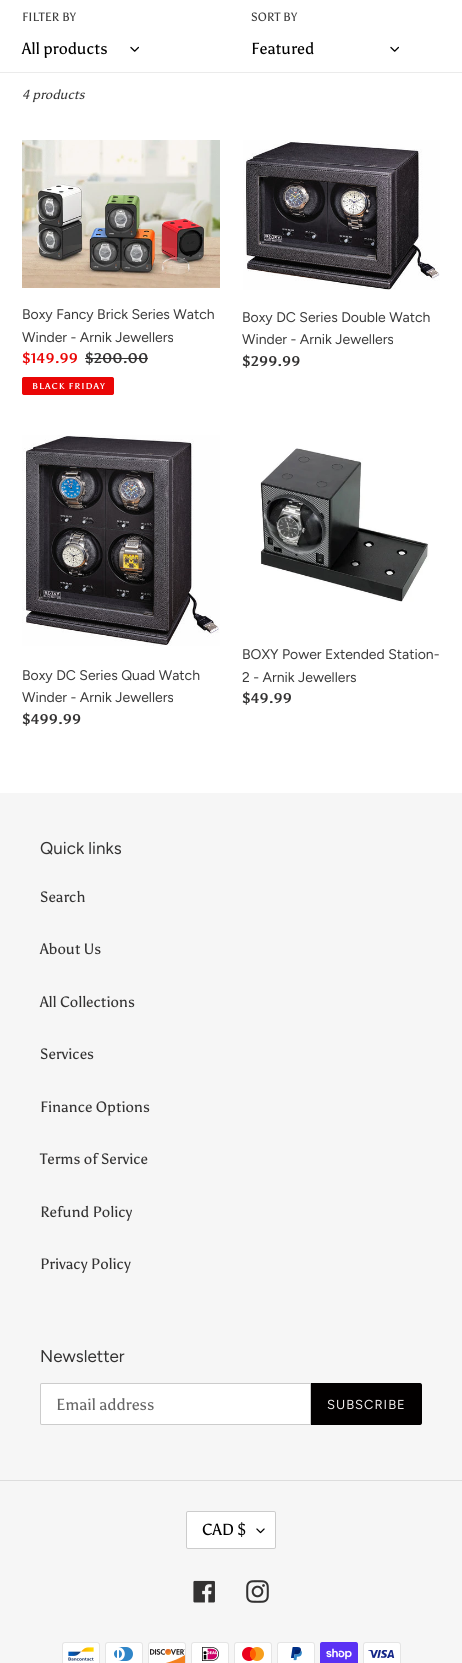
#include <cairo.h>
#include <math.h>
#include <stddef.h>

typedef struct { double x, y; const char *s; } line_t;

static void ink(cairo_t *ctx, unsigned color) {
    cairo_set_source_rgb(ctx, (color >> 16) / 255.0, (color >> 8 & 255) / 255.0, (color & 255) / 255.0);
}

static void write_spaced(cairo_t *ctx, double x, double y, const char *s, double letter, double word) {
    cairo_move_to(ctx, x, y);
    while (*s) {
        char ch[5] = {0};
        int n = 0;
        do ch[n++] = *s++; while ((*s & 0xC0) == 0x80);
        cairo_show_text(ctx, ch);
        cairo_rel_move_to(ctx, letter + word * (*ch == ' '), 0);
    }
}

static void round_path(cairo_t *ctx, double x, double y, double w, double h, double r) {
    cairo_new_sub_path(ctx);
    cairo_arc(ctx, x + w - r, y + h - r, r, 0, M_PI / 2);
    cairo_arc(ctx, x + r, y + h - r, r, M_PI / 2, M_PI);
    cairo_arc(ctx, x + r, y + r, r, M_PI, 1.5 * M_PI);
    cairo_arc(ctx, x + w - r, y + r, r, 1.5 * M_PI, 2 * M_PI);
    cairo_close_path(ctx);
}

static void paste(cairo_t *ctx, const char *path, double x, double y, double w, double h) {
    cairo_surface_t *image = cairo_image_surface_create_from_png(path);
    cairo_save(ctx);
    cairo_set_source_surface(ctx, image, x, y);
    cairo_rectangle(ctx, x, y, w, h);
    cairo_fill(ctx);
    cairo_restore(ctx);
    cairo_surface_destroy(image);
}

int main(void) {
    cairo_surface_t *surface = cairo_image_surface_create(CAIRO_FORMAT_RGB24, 462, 1663);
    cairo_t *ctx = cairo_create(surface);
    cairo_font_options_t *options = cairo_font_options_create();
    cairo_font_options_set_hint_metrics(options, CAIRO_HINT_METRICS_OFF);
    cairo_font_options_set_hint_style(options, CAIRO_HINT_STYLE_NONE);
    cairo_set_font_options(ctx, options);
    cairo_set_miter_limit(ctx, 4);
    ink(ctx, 0xFFFFFF);
    cairo_paint(ctx);
    cairo_select_font_face(ctx, "Asul", CAIRO_FONT_SLANT_NORMAL, CAIRO_FONT_WEIGHT_NORMAL);
    cairo_set_font_size(ctx, 12);
    ink(ctx, 0x3A3A3A);
    cairo_move_to(ctx, 22, 21);
    cairo_show_text(ctx, "FILTER BY");
    cairo_set_font_size(ctx, 16);
    ink(ctx, 0x000000);
    cairo_move_to(ctx, 22, 54);
    cairo_show_text(ctx, "All products");
    paste(ctx, "media/1.png", 130, 46, 9, 6);
    cairo_set_font_size(ctx, 12);
    ink(ctx, 0x3A3A3A);
    cairo_move_to(ctx, 251, 21);
    cairo_show_text(ctx, "SORT BY");
    cairo_set_font_size(ctx, 16);
    ink(ctx, 0x000000);
    cairo_move_to(ctx, 251, 54);
    cairo_show_text(ctx, "Featured");
    paste(ctx, "media/1.png", 390, 46, 9, 6);
    ink(ctx, 0xEBEBEB);
    cairo_rectangle(ctx, 0, 72, 462, 1);
    cairo_fill(ctx);
    cairo_select_font_face(ctx, "Asul", CAIRO_FONT_SLANT_ITALIC, CAIRO_FONT_WEIGHT_NORMAL);
    cairo_set_font_size(ctx, 13);
    ink(ctx, 0x3A3A3A);
    cairo_move_to(ctx, 22, 99);
    cairo_show_text(ctx, "4 products");
    paste(ctx, "media/2.png", 22, 140, 198, 148);
    cairo_select_font_face(ctx, "Figtree", CAIRO_FONT_SLANT_NORMAL, CAIRO_FONT_WEIGHT_NORMAL);
    cairo_set_font_size(ctx, 14);
    cairo_move_to(ctx, 22, 319);
    cairo_show_text(ctx, "Boxy Fancy Brick Series Watch");
    cairo_move_to(ctx, 22, 342);
    cairo_show_text(ctx, "Winder - Arnik Jewellers");
    cairo_select_font_face(ctx, "Asul", CAIRO_FONT_SLANT_NORMAL, CAIRO_FONT_WEIGHT_BOLD);
    ink(ctx, 0xEA0606);
    cairo_move_to(ctx, 22, 363);
    cairo_show_text(ctx, "$149.99");
    ink(ctx, 0x333232);
    cairo_move_to(ctx, 85, 363);
    cairo_show_text(ctx, "$200.00");
    cairo_rectangle(ctx, 85, 358, 63, 1);
    cairo_fill(ctx);
    ink(ctx, 0xEA0606);
    round_path(ctx, 22.5, 377.5, 91, 17, 1.5);
    cairo_fill_preserve(ctx);
    cairo_set_line_width(ctx, 1);
    cairo_stroke(ctx);
    cairo_set_font_size(ctx, 8.5);
    ink(ctx, 0xFFFFFF);
    write_spaced(ctx, 32, 389, "BLACK FRIDAY", 1, 0);
    paste(ctx, "media/3.png", 243, 140, 197, 150);
    cairo_select_font_face(ctx, "Figtree", CAIRO_FONT_SLANT_NORMAL, CAIRO_FONT_WEIGHT_NORMAL);
    cairo_set_font_size(ctx, 14);
    ink(ctx, 0x3A3A3A);
    cairo_move_to(ctx, 242, 322);
    cairo_show_text(ctx, "Boxy DC Series Double Watch");
    cairo_move_to(ctx, 242, 344);
    cairo_show_text(ctx, "Winder - Arnik Jewellers");
    cairo_select_font_face(ctx, "Asul", CAIRO_FONT_SLANT_NORMAL, CAIRO_FONT_WEIGHT_BOLD);
    ink(ctx, 0x333232);
    cairo_move_to(ctx, 242, 366);
    cairo_show_text(ctx, "$299.99");
    paste(ctx, "media/4.png", 22, 435, 198, 211);
    cairo_select_font_face(ctx, "Figtree", CAIRO_FONT_SLANT_NORMAL, CAIRO_FONT_WEIGHT_NORMAL);
    ink(ctx, 0x3A3A3A);
    cairo_move_to(ctx, 22, 680);
    cairo_show_text(ctx, "Boxy DC Series Quad Watch");
    cairo_move_to(ctx, 22, 702);
    cairo_show_text(ctx, "Winder - Arnik Jewellers");
    cairo_select_font_face(ctx, "Asul", CAIRO_FONT_SLANT_NORMAL, CAIRO_FONT_WEIGHT_BOLD);
    ink(ctx, 0x333232);
    cairo_move_to(ctx, 22, 724);
    cairo_show_text(ctx, "$499.99");
    paste(ctx, "media/5.png", 260, 448, 169, 154);
    cairo_select_font_face(ctx, "Figtree", CAIRO_FONT_SLANT_NORMAL, CAIRO_FONT_WEIGHT_NORMAL);
    ink(ctx, 0x3A3A3A);
    cairo_move_to(ctx, 242, 659);
    cairo_show_text(ctx, "BOXY Power Extended Station-");
    cairo_move_to(ctx, 242, 682);
    cairo_show_text(ctx, "2 - Arnik Jewellers");
    cairo_select_font_face(ctx, "Asul", CAIRO_FONT_SLANT_NORMAL, CAIRO_FONT_WEIGHT_BOLD);
    ink(ctx, 0x333232);
    cairo_move_to(ctx, 242, 703);
    cairo_show_text(ctx, "$49.99");
    ink(ctx, 0xF6F6F6);
    cairo_rectangle(ctx, 0, 793, 462, 870);
    cairo_fill(ctx);
    cairo_select_font_face(ctx, "Figtree", CAIRO_FONT_SLANT_NORMAL, CAIRO_FONT_WEIGHT_NORMAL);
    cairo_set_font_size(ctx, 17);
    ink(ctx, 0x333232);
    cairo_move_to(ctx, 40, 854);
    cairo_show_text(ctx, "Quick links");
    cairo_select_font_face(ctx, "Asul", CAIRO_FONT_SLANT_NORMAL, CAIRO_FONT_WEIGHT_NORMAL);
    cairo_set_font_size(ctx, 15);
    {
        static const line_t items[] = {
            {40, 902, "Search"},
            {40, 954, "About Us"},
            {40, 1007, "All Collections"},
            {40, 1059, "Services"},
            {40, 1112, "Finance Options"},
            {40, 1164, "Terms of Service"},
            {40, 1217, "Refund Policy"},
            {40, 1269, "Privacy Policy"},
        };
        for (size_t i = 0; i < sizeof items / sizeof *items; i++) {
            cairo_move_to(ctx, items[i].x, items[i].y);
            cairo_show_text(ctx, items[i].s);
        }
    }
    cairo_select_font_face(ctx, "Figtree", CAIRO_FONT_SLANT_NORMAL, CAIRO_FONT_WEIGHT_NORMAL);
    cairo_set_font_size(ctx, 17);
    cairo_move_to(ctx, 40, 1362);
    cairo_show_text(ctx, "Newsletter");
    ink(ctx, 0xFFFFFF);
    cairo_new_path(ctx);
    cairo_move_to(ctx, 42, 1383.5);
    cairo_line_to(ctx, 310.5, 1383.5);
    cairo_line_to(ctx, 310.5, 1424.5);
    cairo_line_to(ctx, 42, 1424.5);
    cairo_curve_to(ctx, 41, 1424.5, 40.5, 1424, 40.5, 1423);
    cairo_line_to(ctx, 40.5, 1385);
    cairo_curve_to(ctx, 40.5, 1384, 41, 1383.5, 42, 1383.5);
    cairo_close_path(ctx);
    cairo_fill_preserve(ctx);
    ink(ctx, 0xCCCCCC);
    cairo_stroke(ctx);
    cairo_select_font_face(ctx, "Asul", CAIRO_FONT_SLANT_NORMAL, CAIRO_FONT_WEIGHT_NORMAL);
    cairo_set_font_size(ctx, 16);
    ink(ctx, 0x666666);
    cairo_move_to(ctx, 56, 1410);
    cairo_show_text(ctx, "Email address");
    ink(ctx, 0x020000);
    cairo_new_path(ctx);
    cairo_move_to(ctx, 311, 1383);
    cairo_line_to(ctx, 420, 1383);
    cairo_curve_to(ctx, 421, 1383, 422, 1384, 422, 1385);
    cairo_line_to(ctx, 422, 1423);
    cairo_curve_to(ctx, 422, 1424, 421, 1425, 420, 1425);
    cairo_line_to(ctx, 311, 1425);
    cairo_close_path(ctx);
    cairo_fill(ctx);
    cairo_select_font_face(ctx, "Figtree", CAIRO_FONT_SLANT_NORMAL, CAIRO_FONT_WEIGHT_NORMAL);
    cairo_set_font_size(ctx, 13);
    ink(ctx, 0xF3F0F0);
    write_spaced(ctx, 327, 1409, "SUBSCRIBE", 1, 0);
    ink(ctx, 0xDDDDDD);
    cairo_rectangle(ctx, 0, 1480, 462, 1);
    cairo_fill(ctx);
    ink(ctx, 0xFFFFFF);
    round_path(ctx, 186, 1511, 90, 38, 2);
    cairo_fill(ctx);
    paste(ctx, "media/6.png", 256, 1528, 9, 6);
    round_path(ctx, 186.5, 1511.5, 89, 37, 1.5);
    ink(ctx, 0xCCCCCC);
    cairo_stroke(ctx);
    cairo_select_font_face(ctx, "Asul", CAIRO_FONT_SLANT_NORMAL, CAIRO_FONT_WEIGHT_NORMAL);
    cairo_set_font_size(ctx, 16);
    ink(ctx, 0x000000);
    cairo_move_to(ctx, 202, 1535);
    cairo_show_text(ctx, "CAD $");
    paste(ctx, "media/7.png", 193, 1580, 22, 23);
    paste(ctx, "media/8.png", 246, 1580, 23, 23);
    paste(ctx, "media/9.png", 62, 1642, 38, 21);
    paste(ctx, "media/10.png", 105, 1642, 38, 21);
    paste(ctx, "media/11.png", 148, 1642, 38, 21);
    paste(ctx, "media/12.png", 191, 1642, 38, 21);
    paste(ctx, "media/13.png", 234, 1642, 38, 21);
    paste(ctx, "media/14.png", 277, 1642, 38, 21);
    paste(ctx, "media/15.png", 320, 1642, 38, 21);
    paste(ctx, "media/16.png", 363, 1642, 38, 21);
    cairo_surface_write_to_png(surface, "image.png");
    cairo_font_options_destroy(options);
    cairo_destroy(ctx);
    cairo_surface_destroy(surface);
    return 0;
}
